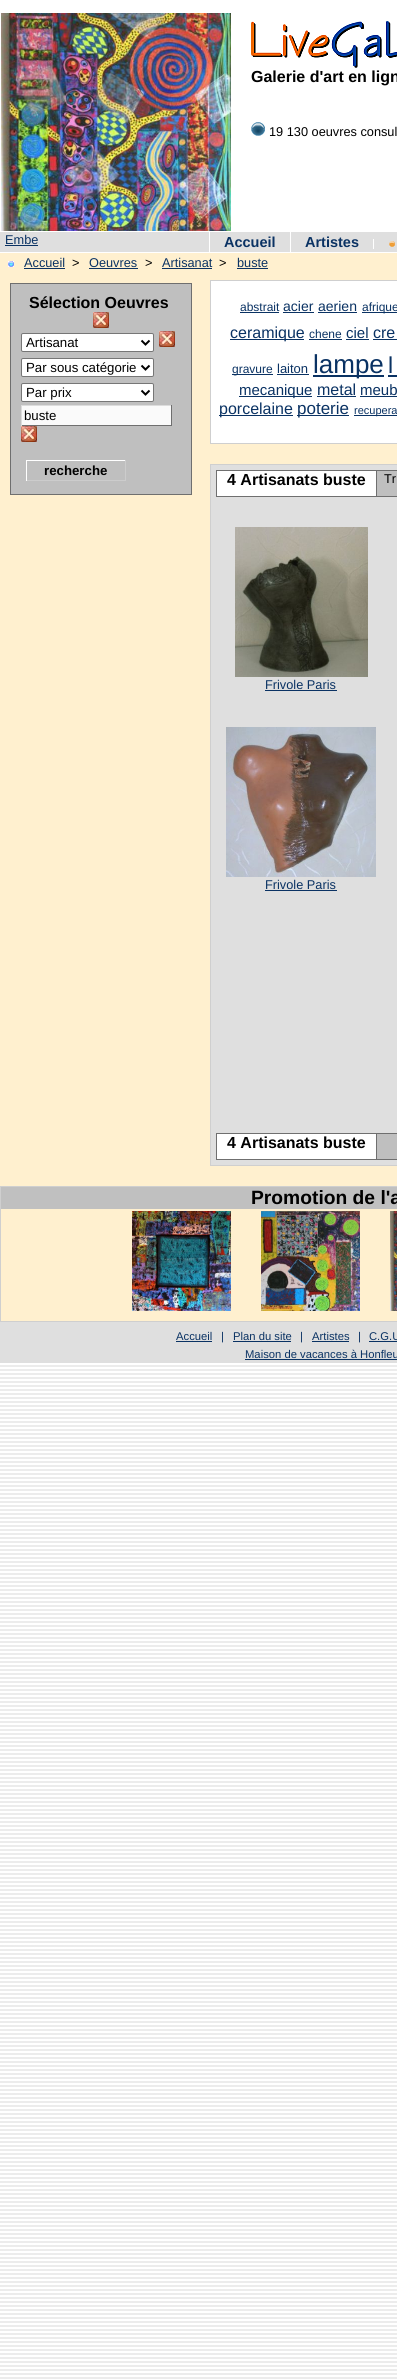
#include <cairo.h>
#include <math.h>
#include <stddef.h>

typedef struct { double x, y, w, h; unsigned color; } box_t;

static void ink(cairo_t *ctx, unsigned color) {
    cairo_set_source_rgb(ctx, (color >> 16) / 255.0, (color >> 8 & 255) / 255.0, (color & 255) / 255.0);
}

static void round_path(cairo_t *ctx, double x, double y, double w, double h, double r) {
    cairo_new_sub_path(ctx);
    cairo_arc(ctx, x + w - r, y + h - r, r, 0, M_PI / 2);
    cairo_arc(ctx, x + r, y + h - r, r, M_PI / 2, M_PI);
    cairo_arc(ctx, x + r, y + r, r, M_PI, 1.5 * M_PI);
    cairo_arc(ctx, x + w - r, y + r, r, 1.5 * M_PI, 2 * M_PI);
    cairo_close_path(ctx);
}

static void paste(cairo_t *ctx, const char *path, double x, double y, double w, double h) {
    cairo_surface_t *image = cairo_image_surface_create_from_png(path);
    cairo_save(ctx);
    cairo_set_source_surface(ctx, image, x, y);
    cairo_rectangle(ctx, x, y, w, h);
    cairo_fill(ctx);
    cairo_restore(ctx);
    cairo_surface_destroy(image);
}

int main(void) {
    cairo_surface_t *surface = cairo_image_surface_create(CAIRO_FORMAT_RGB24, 397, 2379);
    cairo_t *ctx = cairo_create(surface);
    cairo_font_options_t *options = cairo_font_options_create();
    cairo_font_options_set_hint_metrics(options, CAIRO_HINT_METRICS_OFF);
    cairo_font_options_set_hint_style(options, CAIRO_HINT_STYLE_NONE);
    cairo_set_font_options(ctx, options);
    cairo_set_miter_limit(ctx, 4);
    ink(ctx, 0xFFFFFF);
    cairo_paint(ctx);
    paste(ctx, "media/1.png", 0, 252, 397, 2127);
    paste(ctx, "media/2.png", 251, 21, 146, 47);
    cairo_select_font_face(ctx, "Liberation Sans", CAIRO_FONT_SLANT_NORMAL, CAIRO_FONT_WEIGHT_BOLD);
    cairo_set_font_size(ctx, 16);
    ink(ctx, 0x000000);
    cairo_move_to(ctx, 251, 82);
    cairo_show_text(ctx, "Galerie d'art en lign");
    paste(ctx, "media/3.png", 251, 122, 14, 14);
    cairo_select_font_face(ctx, "Liberation Sans", CAIRO_FONT_SLANT_NORMAL, CAIRO_FONT_WEIGHT_NORMAL);
    cairo_set_font_size(ctx, 12.75);
    cairo_move_to(ctx, 269, 136);
    cairo_show_text(ctx, "19 130 oeuvres consul");
    paste(ctx, "media/4.png", 1, 13, 230, 218);
    ink(ctx, 0xDFDFDF);
    cairo_rectangle(ctx, 0, 232, 397, 20);
    cairo_fill(ctx);
    ink(ctx, 0x0A3263);
    cairo_move_to(ctx, 5, 244);
    cairo_show_text(ctx, "Embe");
    cairo_rectangle(ctx, 5, 245, 33, 1);
    cairo_fill(ctx);
    cairo_select_font_face(ctx, "Liberation Sans", CAIRO_FONT_SLANT_NORMAL, CAIRO_FONT_WEIGHT_BOLD);
    cairo_set_font_size(ctx, 14.5);
    cairo_move_to(ctx, 224, 247);
    cairo_show_text(ctx, "Accueil");
    ink(ctx, 0xFFFFFF);
    cairo_rectangle(ctx, 209, 232, 1, 20);
    cairo_fill(ctx);
    ink(ctx, 0x0A3263);
    cairo_move_to(ctx, 305, 247);
    cairo_show_text(ctx, "Artistes");
    ink(ctx, 0xFFFFFF);
    cairo_rectangle(ctx, 290, 232, 1, 20);
    cairo_fill(ctx);
    cairo_rectangle(ctx, 373, 239, 1, 10);
    cairo_fill(ctx);
    paste(ctx, "media/5.png", 389, 241, 6, 6);
    ink(ctx, 0xFFF0CF);
    cairo_rectangle(ctx, 0, 253, 397, 1068);
    cairo_fill(ctx);
    paste(ctx, "media/6.png", 8, 261, 6, 6);
    cairo_select_font_face(ctx, "Liberation Sans", CAIRO_FONT_SLANT_NORMAL, CAIRO_FONT_WEIGHT_NORMAL);
    cairo_set_font_size(ctx, 12.75);
    ink(ctx, 0x0A3263);
    cairo_move_to(ctx, 24, 267);
    cairo_show_text(ctx, "Accueil");
    cairo_rectangle(ctx, 24, 268, 41, 1);
    cairo_fill(ctx);
    ink(ctx, 0x000000);
    cairo_move_to(ctx, 72, 267);
    cairo_show_text(ctx, ">");
    ink(ctx, 0x0A3263);
    cairo_move_to(ctx, 89, 267);
    cairo_show_text(ctx, "Oeuvres");
    cairo_rectangle(ctx, 89, 268, 49, 1);
    cairo_fill(ctx);
    ink(ctx, 0x000000);
    cairo_move_to(ctx, 145, 267);
    cairo_show_text(ctx, ">");
    ink(ctx, 0x0A3263);
    cairo_move_to(ctx, 162, 267);
    cairo_show_text(ctx, "Artisanat");
    cairo_rectangle(ctx, 162, 268, 50, 1);
    cairo_fill(ctx);
    ink(ctx, 0x000000);
    cairo_move_to(ctx, 219, 267);
    cairo_show_text(ctx, ">");
    ink(ctx, 0x0A3263);
    cairo_move_to(ctx, 237, 267);
    cairo_show_text(ctx, "buste");
    cairo_rectangle(ctx, 237, 268, 31, 1);
    cairo_fill(ctx);
    ink(ctx, 0xBFBFBF);
    cairo_rectangle(ctx, 10.5, 283.5, 181, 211);
    cairo_fill_preserve(ctx);
    ink(ctx, 0x6F6F6F);
    cairo_set_line_width(ctx, 1);
    cairo_stroke(ctx);
    cairo_select_font_face(ctx, "Liberation Sans", CAIRO_FONT_SLANT_NORMAL, CAIRO_FONT_WEIGHT_BOLD);
    cairo_set_font_size(ctx, 16);
    ink(ctx, 0x000000);
    cairo_move_to(ctx, 29, 308);
    cairo_show_text(ctx, "Sélection Oeuvres");
    paste(ctx, "media/7.png", 93, 312, 16, 16);
    ink(ctx, 0xFFFFFF);
    round_path(ctx, 21.5, 333.5, 132, 18, 1.5);
    cairo_fill_preserve(ctx);
    ink(ctx, 0x767676);
    cairo_stroke(ctx);
    cairo_new_path(ctx);
    cairo_move_to(ctx, 141.5, 340.5);
    cairo_line_to(ctx, 145.5, 344.5);
    cairo_line_to(ctx, 149.5, 340.5);
    ink(ctx, 0x000000);
    cairo_set_line_width(ctx, 2);
    cairo_stroke(ctx);
    cairo_select_font_face(ctx, "Liberation Sans", CAIRO_FONT_SLANT_NORMAL, CAIRO_FONT_WEIGHT_NORMAL);
    cairo_set_font_size(ctx, 13.25);
    cairo_move_to(ctx, 26, 347);
    cairo_show_text(ctx, "Artisanat");
    paste(ctx, "media/7.png", 159, 331, 16, 16);
    ink(ctx, 0xFFFFFF);
    round_path(ctx, 21.5, 358.5, 132, 18, 1.5);
    cairo_fill_preserve(ctx);
    ink(ctx, 0x767676);
    cairo_set_line_width(ctx, 1);
    cairo_stroke(ctx);
    cairo_new_path(ctx);
    cairo_move_to(ctx, 141.5, 365.5);
    cairo_line_to(ctx, 145.5, 369.5);
    cairo_line_to(ctx, 149.5, 365.5);
    ink(ctx, 0x000000);
    cairo_set_line_width(ctx, 2);
    cairo_stroke(ctx);
    cairo_move_to(ctx, 26, 372);
    cairo_show_text(ctx, "Par sous catégorie");
    ink(ctx, 0xFFFFFF);
    round_path(ctx, 21.5, 383.5, 132, 18, 1.5);
    cairo_fill_preserve(ctx);
    ink(ctx, 0x767676);
    cairo_set_line_width(ctx, 1);
    cairo_stroke(ctx);
    cairo_new_path(ctx);
    cairo_move_to(ctx, 141.5, 390.5);
    cairo_line_to(ctx, 145.5, 394.5);
    cairo_line_to(ctx, 149.5, 390.5);
    ink(ctx, 0x000000);
    cairo_set_line_width(ctx, 2);
    cairo_stroke(ctx);
    cairo_move_to(ctx, 26, 397);
    cairo_show_text(ctx, "Par prix");
    {
        static const box_t items[] = {
            {22, 406, 149, 19, 0xFAFAFA},
            {21, 405, 151, 1, 0xDCDCDC},
            {171, 405, 1, 21, 0x6F6F6F},
            {21, 425, 151, 1, 0x6F6F6F},
            {21, 405, 1, 21, 0xDCDCDC},
        };
        for (size_t i = 0; i < sizeof items / sizeof *items; i++) {
            ink(ctx, items[i].color);
            cairo_rectangle(ctx, items[i].x, items[i].y, items[i].w, items[i].h);
            cairo_fill(ctx);
        }
    }
    ink(ctx, 0x000000);
    cairo_move_to(ctx, 24, 420);
    cairo_show_text(ctx, "buste");
    paste(ctx, "media/7.png", 21, 426, 16, 16);
    {
        static const box_t items[] = {
            {26, 460, 100, 1, 0xFFFFFF},
            {125, 460, 1, 21, 0xCCCCCC},
            {26, 480, 100, 1, 0xCCCCCC},
            {26, 460, 1, 21, 0xFFFFFF},
        };
        for (size_t i = 0; i < sizeof items / sizeof *items; i++) {
            ink(ctx, items[i].color);
            cairo_rectangle(ctx, items[i].x, items[i].y, items[i].w, items[i].h);
            cairo_fill(ctx);
        }
    }
    cairo_select_font_face(ctx, "Liberation Sans", CAIRO_FONT_SLANT_NORMAL, CAIRO_FONT_WEIGHT_BOLD);
    ink(ctx, 0x000000);
    cairo_move_to(ctx, 44, 475);
    cairo_show_text(ctx, "recherche");
    ink(ctx, 0xFFFFFF);
    cairo_rectangle(ctx, 210.5, 280.5, 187, 163);
    cairo_fill_preserve(ctx);
    ink(ctx, 0xCFCFCF);
    cairo_set_line_width(ctx, 1);
    cairo_stroke(ctx);
    cairo_select_font_face(ctx, "Liberation Sans", CAIRO_FONT_SLANT_NORMAL, CAIRO_FONT_WEIGHT_NORMAL);
    cairo_set_font_size(ctx, 12);
    ink(ctx, 0x0A3263);
    cairo_move_to(ctx, 240, 311);
    cairo_show_text(ctx, "abstrait");
    cairo_rectangle(ctx, 240, 312, 39, 1);
    cairo_fill(ctx);
    cairo_set_font_size(ctx, 14);
    cairo_move_to(ctx, 283, 311);
    cairo_show_text(ctx, "acier");
    cairo_rectangle(ctx, 283, 312, 31, 1);
    cairo_fill(ctx);
    cairo_move_to(ctx, 318, 311);
    cairo_show_text(ctx, "aerien");
    cairo_rectangle(ctx, 318, 312, 39, 1);
    cairo_fill(ctx);
    cairo_rectangle(ctx, 362, 312, 35, 1);
    cairo_fill(ctx);
    cairo_set_font_size(ctx, 12);
    cairo_move_to(ctx, 362, 311);
    cairo_show_text(ctx, "afrique");
    cairo_rectangle(ctx, 230, 339, 74, 1);
    cairo_fill(ctx);
    cairo_set_font_size(ctx, 16);
    cairo_move_to(ctx, 230, 338);
    cairo_show_text(ctx, "ceramique");
    cairo_set_font_size(ctx, 12);
    cairo_move_to(ctx, 309, 338);
    cairo_show_text(ctx, "chene");
    cairo_rectangle(ctx, 309, 339, 33, 1);
    cairo_fill(ctx);
    cairo_set_font_size(ctx, 15);
    cairo_move_to(ctx, 346, 338);
    cairo_show_text(ctx, "ciel");
    cairo_rectangle(ctx, 346, 339, 23, 1);
    cairo_fill(ctx);
    cairo_set_font_size(ctx, 16);
    cairo_move_to(ctx, 373, 338);
    cairo_show_text(ctx, "cre");
    cairo_rectangle(ctx, 373, 339, 24, 1);
    cairo_fill(ctx);
    cairo_rectangle(ctx, 232, 374, 41, 1);
    cairo_fill(ctx);
    cairo_set_font_size(ctx, 12);
    cairo_move_to(ctx, 232, 373);
    cairo_show_text(ctx, "gravure");
    cairo_set_font_size(ctx, 13);
    cairo_move_to(ctx, 277, 373);
    cairo_show_text(ctx, "laiton");
    cairo_rectangle(ctx, 277, 374, 32, 1);
    cairo_fill(ctx);
    cairo_rectangle(ctx, 313, 375, 71, 2);
    cairo_fill(ctx);
    cairo_set_font_size(ctx, 26);
    cairo_move_to(ctx, 313, 373);
    cairo_show_text(ctx, "lampe");
    cairo_set_font_size(ctx, 23);
    cairo_move_to(ctx, 388, 373);
    cairo_show_text(ctx, "l");
    cairo_rectangle(ctx, 388, 375, 9, 2);
    cairo_fill(ctx);
    cairo_rectangle(ctx, 239, 396, 73, 1);
    cairo_fill(ctx);
    cairo_set_font_size(ctx, 15);
    cairo_move_to(ctx, 239, 395);
    cairo_show_text(ctx, "mecanique");
    cairo_set_font_size(ctx, 16);
    cairo_move_to(ctx, 317, 395);
    cairo_show_text(ctx, "metal");
    cairo_rectangle(ctx, 317, 396, 39, 1);
    cairo_fill(ctx);
    cairo_set_font_size(ctx, 15);
    cairo_move_to(ctx, 360, 395);
    cairo_show_text(ctx, "meub");
    cairo_rectangle(ctx, 360, 396, 37, 1);
    cairo_fill(ctx);
    cairo_rectangle(ctx, 219, 415, 74, 1);
    cairo_fill(ctx);
    cairo_set_font_size(ctx, 16);
    cairo_move_to(ctx, 219, 414);
    cairo_show_text(ctx, "porcelaine");
    cairo_rectangle(ctx, 297, 415, 52, 1);
    cairo_fill(ctx);
    cairo_set_font_size(ctx, 17);
    cairo_move_to(ctx, 297, 414);
    cairo_show_text(ctx, "poterie");
    cairo_rectangle(ctx, 354, 415, 43, 1);
    cairo_fill(ctx);
    cairo_set_font_size(ctx, 11);
    cairo_move_to(ctx, 354, 414);
    cairo_show_text(ctx, "recupera");
    ink(ctx, 0xDFDFDF);
    cairo_rectangle(ctx, 210.5, 464.5, 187, 701);
    cairo_fill_preserve(ctx);
    ink(ctx, 0xCFCFCF);
    cairo_stroke(ctx);
    ink(ctx, 0xBFBFBF);
    cairo_rectangle(ctx, 377, 471, 20, 25);
    cairo_fill(ctx);
    cairo_rectangle(ctx, 216.5, 470.5, 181, 26);
    ink(ctx, 0x6F6F6F);
    cairo_stroke(ctx);
    ink(ctx, 0xFFFFFF);
    cairo_rectangle(ctx, 217, 471, 159, 25);
    cairo_fill(ctx);
    ink(ctx, 0x6F6F6F);
    cairo_rectangle(ctx, 376, 471, 1, 25);
    cairo_fill(ctx);
    cairo_select_font_face(ctx, "Liberation Sans", CAIRO_FONT_SLANT_NORMAL, CAIRO_FONT_WEIGHT_BOLD);
    cairo_set_font_size(ctx, 16);
    ink(ctx, 0x000000);
    cairo_move_to(ctx, 227, 485);
    cairo_show_text(ctx, "4 Artisanats buste");
    cairo_select_font_face(ctx, "Liberation Sans", CAIRO_FONT_SLANT_NORMAL, CAIRO_FONT_WEIGHT_NORMAL);
    cairo_set_font_size(ctx, 12.75);
    cairo_move_to(ctx, 384, 483);
    cairo_show_text(ctx, "Tr");
    paste(ctx, "media/8.png", 235, 527, 133, 150);
    ink(ctx, 0x0A3263);
    cairo_move_to(ctx, 265, 689);
    cairo_show_text(ctx, "Frivole Paris");
    cairo_rectangle(ctx, 265, 690, 72, 1);
    cairo_fill(ctx);
    paste(ctx, "media/9.png", 226, 727, 150, 150);
    cairo_move_to(ctx, 265, 889);
    cairo_show_text(ctx, "Frivole Paris");
    cairo_rectangle(ctx, 265, 890, 72, 1);
    cairo_fill(ctx);
    ink(ctx, 0xBFBFBF);
    cairo_rectangle(ctx, 377, 1134, 20, 25);
    cairo_fill(ctx);
    cairo_rectangle(ctx, 216.5, 1133.5, 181, 26);
    ink(ctx, 0x6F6F6F);
    cairo_stroke(ctx);
    ink(ctx, 0xFFFFFF);
    cairo_rectangle(ctx, 217, 1134, 159, 25);
    cairo_fill(ctx);
    ink(ctx, 0x6F6F6F);
    cairo_rectangle(ctx, 376, 1134, 1, 25);
    cairo_fill(ctx);
    cairo_select_font_face(ctx, "Liberation Sans", CAIRO_FONT_SLANT_NORMAL, CAIRO_FONT_WEIGHT_BOLD);
    cairo_set_font_size(ctx, 16);
    ink(ctx, 0x000000);
    cairo_move_to(ctx, 227, 1148);
    cairo_show_text(ctx, "4 Artisanats buste");
    cairo_rectangle(ctx, 0.5, 1186.5, 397, 135);
    ink(ctx, 0xCFCFCF);
    cairo_stroke(ctx);
    ink(ctx, 0xC0C0C0);
    cairo_rectangle(ctx, 1, 1187, 396, 22);
    cairo_fill(ctx);
    cairo_set_font_size(ctx, 19.25);
    ink(ctx, 0x000000);
    cairo_move_to(ctx, 251, 1204);
    cairo_show_text(ctx, "Promotion de l'a");
    paste(ctx, "media/10.png", 132, 1211, 99, 100);
    paste(ctx, "media/11.png", 261, 1211, 99, 100);
    paste(ctx, "media/12.png", 390, 1211, 7, 100);
    ink(ctx, 0xDFDFDF);
    cairo_rectangle(ctx, 0, 1322, 397, 41);
    cairo_fill(ctx);
    cairo_select_font_face(ctx, "Liberation Sans", CAIRO_FONT_SLANT_NORMAL, CAIRO_FONT_WEIGHT_NORMAL);
    cairo_set_font_size(ctx, 11.25);
    ink(ctx, 0x0A3263);
    cairo_move_to(ctx, 176, 1340);
    cairo_show_text(ctx, "Accueil");
    cairo_rectangle(ctx, 176, 1341, 36, 1);
    cairo_fill(ctx);
    cairo_move_to(ctx, 221, 1340);
    cairo_show_text(ctx, "|");
    cairo_move_to(ctx, 233, 1340);
    cairo_show_text(ctx, "Plan du site");
    cairo_rectangle(ctx, 233, 1341, 58, 1);
    cairo_fill(ctx);
    cairo_move_to(ctx, 300, 1340);
    cairo_show_text(ctx, "|");
    cairo_move_to(ctx, 312, 1340);
    cairo_show_text(ctx, "Artistes");
    cairo_rectangle(ctx, 312, 1341, 37, 1);
    cairo_fill(ctx);
    cairo_move_to(ctx, 358, 1340);
    cairo_show_text(ctx, "|");
    cairo_move_to(ctx, 369, 1340);
    cairo_show_text(ctx, "C.G.U");
    cairo_rectangle(ctx, 369, 1341, 28, 1);
    cairo_fill(ctx);
    cairo_move_to(ctx, 245, 1358);
    cairo_show_text(ctx, "Maison de vacances à Honfleu");
    cairo_rectangle(ctx, 245, 1359, 152, 1);
    cairo_fill(ctx);
    cairo_surface_write_to_png(surface, "image.png");
    cairo_font_options_destroy(options);
    cairo_destroy(ctx);
    cairo_surface_destroy(surface);
    return 0;
}
